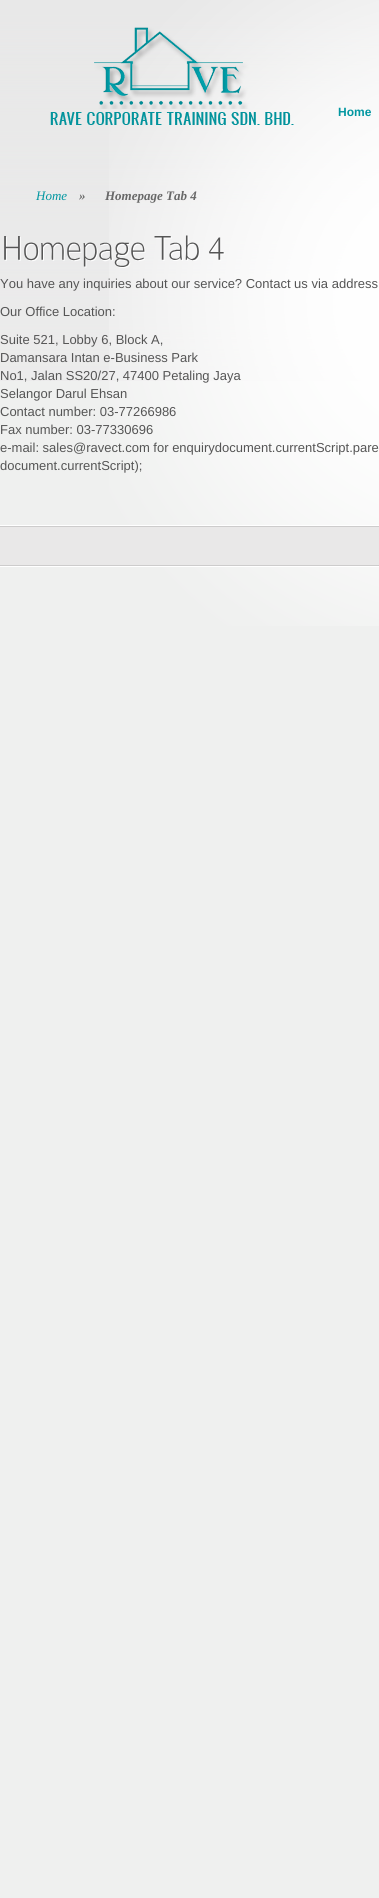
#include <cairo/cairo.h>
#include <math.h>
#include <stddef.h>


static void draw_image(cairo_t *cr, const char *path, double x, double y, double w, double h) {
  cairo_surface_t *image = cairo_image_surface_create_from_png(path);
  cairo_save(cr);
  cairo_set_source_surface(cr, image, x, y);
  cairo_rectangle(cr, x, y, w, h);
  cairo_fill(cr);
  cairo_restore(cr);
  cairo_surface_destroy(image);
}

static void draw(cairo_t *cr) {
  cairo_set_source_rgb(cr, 239 / 255.0, 240 / 255.0, 239 / 255.0);
  cairo_paint(cr);
  draw_image(cr, "images/1.png", 0, 0, 379, 381);
  draw_image(cr, "images/2.png", 109, 0, 270, 626);
  draw_image(cr, "images/3.png", 50, 27, 244, 98);
  draw_image(cr, "images/4.png", 4, 236, 142, 32);
  draw_image(cr, "images/5.png", 154, 235, 46, 26);
  draw_image(cr, "images/6.png", 209, 237, 16, 24);
  cairo_set_source_rgb(cr, 233 / 255.0, 232 / 255.0, 232 / 255.0);
  cairo_rectangle(cr, 0, 525, 379, 40);
  cairo_fill(cr);
  draw_image(cr, "images/7.png", 0, 525, 379, 2);
  cairo_set_source_rgb(cr, 205 / 255.0, 204 / 255.0, 204 / 255.0);
  cairo_rectangle(cr, 0, 565, 379, 1);
  cairo_fill(cr);
  cairo_set_source_rgb(cr, 1, 1, 1);
  cairo_rectangle(cr, 0, 566, 379, 1);
  cairo_fill(cr);
  cairo_select_font_face(cr, "Liberation Sans", CAIRO_FONT_SLANT_NORMAL, CAIRO_FONT_WEIGHT_BOLD);
  cairo_set_font_size(cr, 12);
  cairo_set_source_rgb(cr, 2 / 255.0, 151 / 255.0, 161 / 255.0);
  cairo_move_to(cr, 338, 116);
  cairo_show_text(cr, "Home");
  cairo_select_font_face(cr, "Liberation Serif", CAIRO_FONT_SLANT_ITALIC, CAIRO_FONT_WEIGHT_NORMAL);
  cairo_set_font_size(cr, 13);
  cairo_move_to(cr, 36, 200);
  cairo_show_text(cr, "Home");
  cairo_select_font_face(cr, "Liberation Serif", CAIRO_FONT_SLANT_ITALIC, CAIRO_FONT_WEIGHT_BOLD);
  cairo_set_source_rgb(cr, 104 / 255.0, 104 / 255.0, 104 / 255.0);
  cairo_move_to(cr, 79, 200);
  cairo_show_text(cr, "»");
  cairo_move_to(cr, 105, 200);
  cairo_show_text(cr, "Homepage Tab 4");
  cairo_select_font_face(cr, "Liberation Sans", CAIRO_FONT_SLANT_NORMAL, CAIRO_FONT_WEIGHT_NORMAL);
  cairo_set_source_rgb(cr, 85 / 255.0, 85 / 255.0, 85 / 255.0);
  cairo_move_to(cr, 0, 288);
  cairo_show_text(cr, "You have any inquiries about our service? Contact us via address");
  cairo_move_to(cr, 0, 316);
  cairo_show_text(cr, "Our Office Location:");
  cairo_move_to(cr, 0, 344);
  cairo_show_text(cr, "Suite 521, Lobby 6, Block A,");
  cairo_move_to(cr, 0, 362);
  cairo_show_text(cr, "Damansara Intan e-Business Park");
  cairo_move_to(cr, 0, 380);
  cairo_show_text(cr, "No1, Jalan SS20/27, 47400 Petaling Jaya");
  cairo_move_to(cr, 0, 398);
  cairo_show_text(cr, "Selangor Darul Ehsan");
  cairo_move_to(cr, 0, 416);
  cairo_show_text(cr, "Contact number: 03-77266986");
  cairo_move_to(cr, 0, 434);
  cairo_show_text(cr, "Fax number: 03-77330696");
  cairo_move_to(cr, 0, 452);
  cairo_show_text(cr, "e-mail: sales@ravect.com for enquirydocument.currentScript.pare");
  cairo_move_to(cr, 0, 470);
  cairo_show_text(cr, "document.currentScript);");
}

int main(void) {
  cairo_surface_t *surface = cairo_image_surface_create(CAIRO_FORMAT_RGB24, 379, 1898);
  cairo_t *cr = cairo_create(surface);
  cairo_font_options_t *options = cairo_font_options_create();
  cairo_font_options_set_hint_metrics(options, CAIRO_HINT_METRICS_OFF);
  cairo_font_options_set_hint_style(options, CAIRO_HINT_STYLE_NONE);
  cairo_set_font_options(cr, options);
  cairo_set_miter_limit(cr, 4);
  draw(cr);
  cairo_surface_write_to_png(surface, "out.png");
  cairo_font_options_destroy(options);
  cairo_destroy(cr);
  cairo_surface_destroy(surface);
  return 0;
}
